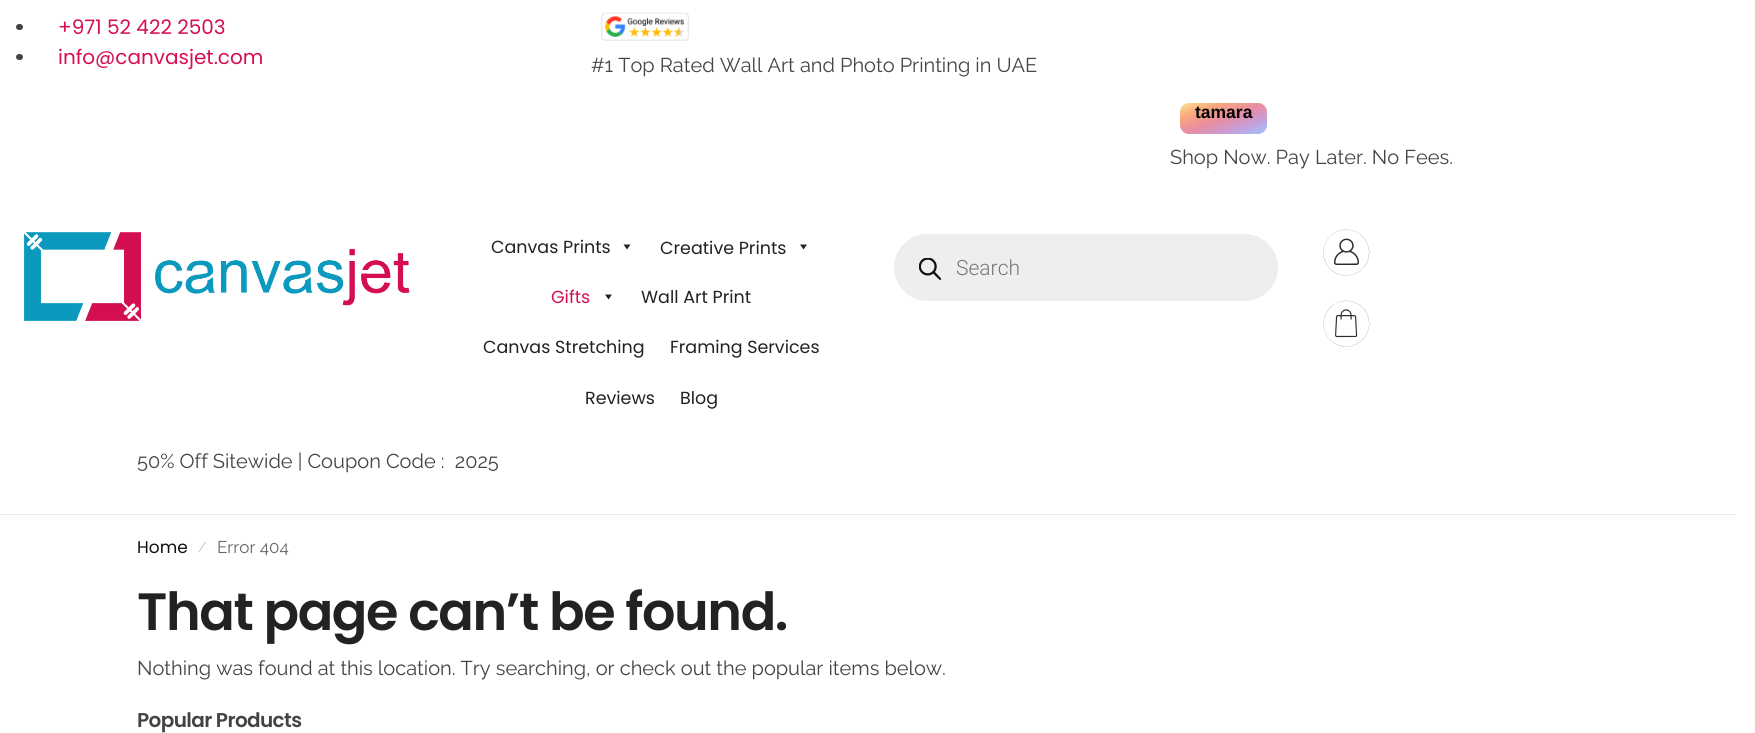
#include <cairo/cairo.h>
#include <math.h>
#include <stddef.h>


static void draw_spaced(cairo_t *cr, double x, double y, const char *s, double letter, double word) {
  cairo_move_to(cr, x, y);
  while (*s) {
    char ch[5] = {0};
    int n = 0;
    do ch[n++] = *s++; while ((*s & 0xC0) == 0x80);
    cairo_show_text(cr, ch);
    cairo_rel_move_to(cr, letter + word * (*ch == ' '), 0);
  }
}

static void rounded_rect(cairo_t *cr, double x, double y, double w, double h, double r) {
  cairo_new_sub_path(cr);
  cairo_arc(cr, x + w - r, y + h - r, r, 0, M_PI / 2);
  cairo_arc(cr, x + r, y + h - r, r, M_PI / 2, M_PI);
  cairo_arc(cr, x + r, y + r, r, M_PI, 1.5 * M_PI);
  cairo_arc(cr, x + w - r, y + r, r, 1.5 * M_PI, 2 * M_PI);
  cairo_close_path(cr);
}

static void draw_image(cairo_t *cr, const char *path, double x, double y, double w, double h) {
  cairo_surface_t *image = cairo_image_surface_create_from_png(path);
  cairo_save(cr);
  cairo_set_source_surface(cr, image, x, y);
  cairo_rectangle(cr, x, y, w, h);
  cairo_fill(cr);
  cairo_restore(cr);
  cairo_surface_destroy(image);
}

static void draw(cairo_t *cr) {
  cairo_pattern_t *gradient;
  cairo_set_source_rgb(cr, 1, 1, 1);
  cairo_paint(cr);
  cairo_set_source_rgb(cr, 68 / 255.0, 68 / 255.0, 68 / 255.0);
  rounded_rect(cr, 16, 24, 7, 6, 3);
  cairo_fill(cr);
  rounded_rect(cr, 16, 54, 7, 6, 3);
  cairo_fill(cr);
  draw_image(cr, "images/1.png", 601, 12, 88, 29);
  gradient = cairo_pattern_create_linear(1180, 103, 1200, 158);
  cairo_pattern_add_color_stop_rgba(gradient, 0, 251 / 255.0, 226 / 255.0, 146 / 255.0, 1);
  cairo_pattern_add_color_stop_rgba(gradient, 0.25, 248 / 255.0, 167 / 255.0, 125 / 255.0, 1);
  cairo_pattern_add_color_stop_rgba(gradient, 0.5, 233 / 255.0, 141 / 255.0, 161 / 255.0, 1);
  cairo_pattern_add_color_stop_rgba(gradient, 0.75, 199 / 255.0, 157 / 255.0, 215 / 255.0, 1);
  cairo_pattern_add_color_stop_rgba(gradient, 1, 160 / 255.0, 196 / 255.0, 1, 1);
  cairo_set_source(cr, gradient);
  cairo_pattern_destroy(gradient);
  rounded_rect(cr, 1180, 103, 87, 31, 9);
  cairo_fill(cr);
  draw_image(cr, "images/2.png", 24, 232, 386, 89);
  cairo_set_source_rgb(cr, 34 / 255.0, 34 / 255.0, 34 / 255.0);
  cairo_new_path(cr);
  cairo_move_to(cr, 630.5, 244.5);
  cairo_line_to(cr, 627, 249.5);
  cairo_line_to(cr, 623.5, 244.5);
  cairo_close_path(cr);
  cairo_fill(cr);
  cairo_new_path(cr);
  cairo_move_to(cr, 807, 244.5);
  cairo_line_to(cr, 803.5, 249.5);
  cairo_line_to(cr, 800, 244.5);
  cairo_close_path(cr);
  cairo_fill(cr);
  cairo_new_path(cr);
  cairo_move_to(cr, 612, 294.5);
  cairo_line_to(cr, 608.5, 299.5);
  cairo_line_to(cr, 605, 294.5);
  cairo_close_path(cr);
  cairo_fill(cr);
  cairo_set_source_rgb(cr, 238 / 255.0, 238 / 255.0, 238 / 255.0);
  rounded_rect(cr, 895.5, 235.5, 381, 64, 32);
  cairo_fill_preserve(cr);
  cairo_set_line_width(cr, 3);
  cairo_stroke(cr);
  draw_image(cr, "images/3.png", 919, 258, 22, 22);
  draw_image(cr, "images/4.png", 1323, 229, 47, 47);
  draw_image(cr, "images/5.png", 1323, 300, 47, 47);
  cairo_set_source_rgb(cr, 233 / 255.0, 235 / 255.0, 236 / 255.0);
  cairo_rectangle(cr, 0, 514, 1736, 1);
  cairo_fill(cr);
  cairo_select_font_face(cr, "Poppins", CAIRO_FONT_SLANT_NORMAL, CAIRO_FONT_WEIGHT_NORMAL);
  cairo_set_font_size(cr, 20);
  cairo_set_source_rgb(cr, 215 / 255.0, 14 / 255.0, 84 / 255.0);
  cairo_move_to(cr, 58, 34);
  cairo_show_text(cr, "+971 52 422 2503");
  cairo_move_to(cr, 58, 64);
  cairo_show_text(cr, "info@canvasjet.com");
  cairo_select_font_face(cr, "Raleway", CAIRO_FONT_SLANT_NORMAL, CAIRO_FONT_WEIGHT_NORMAL);
  cairo_set_source_rgb(cr, 68 / 255.0, 68 / 255.0, 68 / 255.0);
  cairo_move_to(cr, 591, 72);
  cairo_show_text(cr, "#1 Top Rated Wall Art and Photo Printing in UAE");
  cairo_select_font_face(cr, "Liberation Sans", CAIRO_FONT_SLANT_NORMAL, CAIRO_FONT_WEIGHT_BOLD);
  cairo_set_font_size(cr, 17.5);
  cairo_set_source_rgb(cr, 0, 0, 0);
  cairo_move_to(cr, 1195, 118);
  cairo_show_text(cr, "tamara");
  cairo_select_font_face(cr, "Raleway", CAIRO_FONT_SLANT_NORMAL, CAIRO_FONT_WEIGHT_NORMAL);
  cairo_set_font_size(cr, 20);
  cairo_set_source_rgb(cr, 68 / 255.0, 68 / 255.0, 68 / 255.0);
  cairo_move_to(cr, 1170, 164);
  cairo_show_text(cr, "Shop Now. Pay Later. No Fees.");
  cairo_select_font_face(cr, "Poppins", CAIRO_FONT_SLANT_NORMAL, CAIRO_FONT_WEIGHT_NORMAL);
  cairo_set_font_size(cr, 17.5);
  cairo_set_source_rgb(cr, 34 / 255.0, 34 / 255.0, 34 / 255.0);
  cairo_move_to(cr, 491, 253);
  cairo_show_text(cr, "Canvas Prints");
  cairo_move_to(cr, 660, 254);
  cairo_show_text(cr, "Creative Prints");
  cairo_set_source_rgb(cr, 215 / 255.0, 14 / 255.0, 84 / 255.0);
  cairo_move_to(cr, 551, 303);
  cairo_show_text(cr, "Gifts");
  cairo_set_source_rgb(cr, 34 / 255.0, 34 / 255.0, 34 / 255.0);
  cairo_move_to(cr, 641, 303);
  cairo_show_text(cr, "Wall Art Print");
  cairo_move_to(cr, 483, 353);
  cairo_show_text(cr, "Canvas Stretching");
  cairo_move_to(cr, 670, 353);
  cairo_show_text(cr, "Framing Services");
  cairo_move_to(cr, 585, 404);
  cairo_show_text(cr, "Reviews");
  cairo_move_to(cr, 680, 404);
  cairo_show_text(cr, "Blog");
  cairo_select_font_face(cr, "Roboto Light", CAIRO_FONT_SLANT_NORMAL, CAIRO_FONT_WEIGHT_NORMAL);
  cairo_set_font_size(cr, 21);
  cairo_set_source_rgb(cr, 119 / 255.0, 119 / 255.0, 119 / 255.0);
  cairo_move_to(cr, 956, 275);
  cairo_show_text(cr, "Search");
  cairo_select_font_face(cr, "Raleway", CAIRO_FONT_SLANT_NORMAL, CAIRO_FONT_WEIGHT_NORMAL);
  cairo_set_font_size(cr, 20);
  cairo_set_source_rgb(cr, 68 / 255.0, 68 / 255.0, 68 / 255.0);
  cairo_move_to(cr, 137, 468);
  cairo_show_text(cr, "50% Off Sitewide | Coupon Code :  2025");
  cairo_select_font_face(cr, "Poppins", CAIRO_FONT_SLANT_NORMAL, CAIRO_FONT_WEIGHT_NORMAL);
  cairo_set_font_size(cr, 17);
  cairo_set_source_rgb(cr, 17 / 255.0, 17 / 255.0, 17 / 255.0);
  cairo_move_to(cr, 137, 553);
  cairo_show_text(cr, "Home");
  cairo_select_font_face(cr, "Raleway", CAIRO_FONT_SLANT_NORMAL, CAIRO_FONT_WEIGHT_NORMAL);
  cairo_set_font_size(cr, 14);
  cairo_set_source_rgb(cr, 194 / 255.0, 194 / 255.0, 194 / 255.0);
  cairo_move_to(cr, 198, 552);
  cairo_show_text(cr, "/");
  cairo_set_font_size(cr, 17);
  cairo_set_source_rgb(cr, 102 / 255.0, 102 / 255.0, 102 / 255.0);
  cairo_move_to(cr, 217, 553);
  cairo_show_text(cr, "Error 404");
  cairo_select_font_face(cr, "Poppins SemiBold", CAIRO_FONT_SLANT_NORMAL, CAIRO_FONT_WEIGHT_NORMAL);
  cairo_set_font_size(cr, 52.5);
  cairo_set_source_rgb(cr, 34 / 255.0, 34 / 255.0, 34 / 255.0);
  draw_spaced(cr, 137, 630, "That page can’t be found.", -1.4, 0);
  cairo_select_font_face(cr, "Raleway", CAIRO_FONT_SLANT_NORMAL, CAIRO_FONT_WEIGHT_NORMAL);
  cairo_set_font_size(cr, 20);
  cairo_set_source_rgb(cr, 68 / 255.0, 68 / 255.0, 68 / 255.0);
  cairo_move_to(cr, 137, 675);
  cairo_show_text(cr, "Nothing was found at this location. Try searching, or check out the popular items below.");
  cairo_select_font_face(cr, "Poppins SemiBold", CAIRO_FONT_SLANT_NORMAL, CAIRO_FONT_WEIGHT_NORMAL);
  draw_spaced(cr, 137, 727, "Popular Products", -0.6, 0);
}

int main(void) {
  cairo_surface_t *surface = cairo_image_surface_create(CAIRO_FORMAT_RGB24, 1755, 733);
  cairo_t *cr = cairo_create(surface);
  cairo_font_options_t *options = cairo_font_options_create();
  cairo_font_options_set_hint_metrics(options, CAIRO_HINT_METRICS_OFF);
  cairo_font_options_set_hint_style(options, CAIRO_HINT_STYLE_NONE);
  cairo_set_font_options(cr, options);
  cairo_set_miter_limit(cr, 4);
  draw(cr);
  cairo_surface_write_to_png(surface, "out.png");
  cairo_font_options_destroy(options);
  cairo_destroy(cr);
  cairo_surface_destroy(surface);
  return 0;
}
